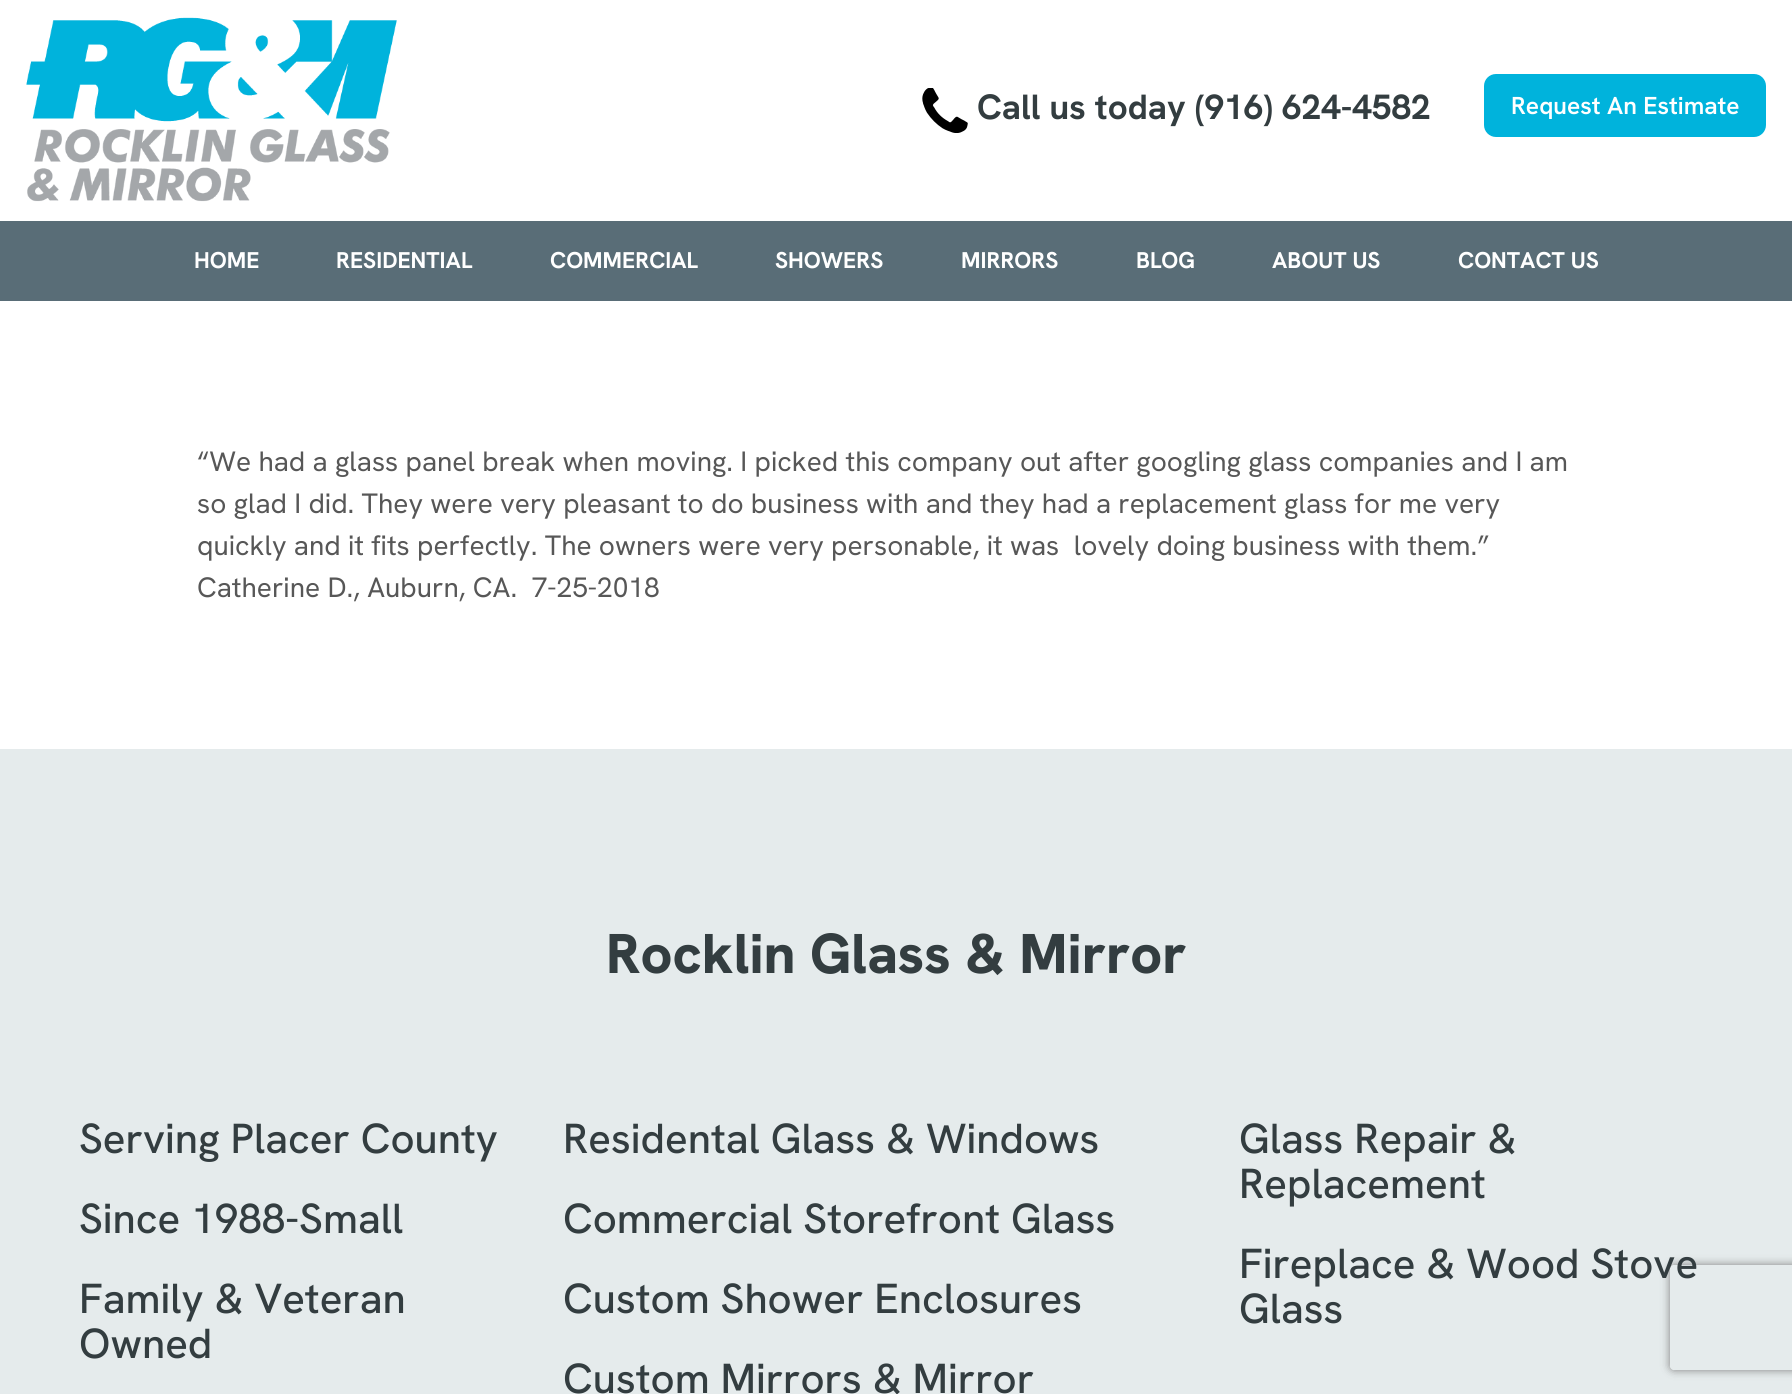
#include <cairo/cairo.h>
#include <math.h>
#include <stddef.h>


static void rounded_rect(cairo_t *cr, double x, double y, double w, double h, double r) {
  cairo_new_sub_path(cr);
  cairo_arc(cr, x + w - r, y + h - r, r, 0, M_PI / 2);
  cairo_arc(cr, x + r, y + h - r, r, M_PI / 2, M_PI);
  cairo_arc(cr, x + r, y + r, r, M_PI, 1.5 * M_PI);
  cairo_arc(cr, x + w - r, y + r, r, 1.5 * M_PI, 2 * M_PI);
  cairo_close_path(cr);
}

static void draw_shadow(cairo_t *cr, double x, double y, double w, double h, double r, double blur, double alpha) {
  cairo_push_group_with_content(cr, CAIRO_CONTENT_ALPHA);
  cairo_set_operator(cr, CAIRO_OPERATOR_SOURCE);
  for (int i = 15; i >= -15 && fmin(w, h) + blur * i / 3 > 0; i -= 2) {
    double e = blur * i / 6;
    cairo_set_source_rgba(cr, 0, 0, 0, alpha * erfc((i - 1) / 8.5) / 2);
    rounded_rect(cr, x - e, y - e, w + 2 * e, h + 2 * e, fmax(0, fmin(r + e + blur * .6, fmin(w, h) / 2 + e)));
    cairo_fill(cr);
  }
  cairo_pattern_t *soft = cairo_pop_group(cr);
  cairo_mask(cr, soft);
  cairo_pattern_destroy(soft);
}

static void draw_image(cairo_t *cr, const char *path, double x, double y, double w, double h) {
  cairo_surface_t *image = cairo_image_surface_create_from_png(path);
  cairo_save(cr);
  cairo_set_source_surface(cr, image, x, y);
  cairo_rectangle(cr, x, y, w, h);
  cairo_fill(cr);
  cairo_restore(cr);
  cairo_surface_destroy(image);
}

static void draw(cairo_t *cr) {
  cairo_set_source_rgb(cr, 1, 1, 1);
  cairo_paint(cr);
  draw_image(cr, "images/1.png", 26, 17, 371, 185);
  draw_image(cr, "images/2.png", 922, 88, 46, 45);
  cairo_set_source_rgb(cr, 0, 179 / 255.0, 220 / 255.0);
  rounded_rect(cr, 1484, 74, 282, 63, 12);
  cairo_fill(cr);
  cairo_set_source_rgb(cr, 89 / 255.0, 109 / 255.0, 119 / 255.0);
  cairo_rectangle(cr, 0, 221, 1792, 80);
  cairo_fill(cr);
  cairo_set_source_rgb(cr, 229 / 255.0, 235 / 255.0, 236 / 255.0);
  cairo_rectangle(cr, 0, 749, 1792, 645);
  cairo_fill(cr);
  cairo_save(cr);
  cairo_set_fill_rule(cr, CAIRO_FILL_RULE_EVEN_ODD);
  cairo_new_path(cr);
  cairo_move_to(cr, 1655, 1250);
  cairo_line_to(cr, 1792, 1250);
  cairo_line_to(cr, 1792, 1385);
  cairo_line_to(cr, 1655, 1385);
  cairo_close_path(cr);
  cairo_move_to(cr, 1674, 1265);
  cairo_line_to(cr, 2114, 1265);
  cairo_curve_to(cr, 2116, 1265, 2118, 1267, 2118, 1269);
  cairo_line_to(cr, 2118, 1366);
  cairo_curve_to(cr, 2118, 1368, 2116, 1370, 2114, 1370);
  cairo_line_to(cr, 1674, 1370);
  cairo_curve_to(cr, 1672, 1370, 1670, 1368, 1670, 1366);
  cairo_line_to(cr, 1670, 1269);
  cairo_curve_to(cr, 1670, 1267, 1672, 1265, 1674, 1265);
  cairo_close_path(cr);
  cairo_clip(cr);
  cairo_set_source_rgb(cr, 128 / 255.0, 128 / 255.0, 128 / 255.0);
  draw_shadow(cr, 1670, 1265, 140, 105, 4, 4.5, 1);
  cairo_restore(cr);
  cairo_select_font_face(cr, "Hanken Grotesk", CAIRO_FONT_SLANT_NORMAL, CAIRO_FONT_WEIGHT_BOLD);
  cairo_set_font_size(cr, 35);
  cairo_set_source_rgb(cr, 51 / 255.0, 61 / 255.0, 64 / 255.0);
  cairo_move_to(cr, 977, 119);
  cairo_show_text(cr, "Call us today (916) 624-4582");
  cairo_select_font_face(cr, "Hanken Grotesk SemiBold", CAIRO_FONT_SLANT_NORMAL, CAIRO_FONT_WEIGHT_NORMAL);
  cairo_set_font_size(cr, 24.5);
  cairo_set_source_rgb(cr, 1, 1, 1);
  cairo_move_to(cr, 1511, 114);
  cairo_show_text(cr, "Request An Estimate");
  cairo_select_font_face(cr, "Hanken Grotesk", CAIRO_FONT_SLANT_NORMAL, CAIRO_FONT_WEIGHT_BOLD);
  cairo_set_font_size(cr, 22.75);
  cairo_move_to(cr, 194, 268);
  cairo_show_text(cr, "HOME");
  cairo_move_to(cr, 336, 268);
  cairo_show_text(cr, "RESIDENTIAL");
  cairo_move_to(cr, 550, 268);
  cairo_show_text(cr, "COMMERCIAL");
  cairo_move_to(cr, 775, 268);
  cairo_show_text(cr, "SHOWERS");
  cairo_move_to(cr, 961, 268);
  cairo_show_text(cr, "MIRRORS");
  cairo_move_to(cr, 1136, 268);
  cairo_show_text(cr, "BLOG");
  cairo_move_to(cr, 1272, 268);
  cairo_show_text(cr, "ABOUT US");
  cairo_move_to(cr, 1458, 268);
  cairo_show_text(cr, "CONTACT US");
  cairo_select_font_face(cr, "Hanken Grotesk", CAIRO_FONT_SLANT_NORMAL, CAIRO_FONT_WEIGHT_NORMAL);
  cairo_set_font_size(cr, 28);
  cairo_set_source_rgb(cr, 87 / 255.0, 87 / 255.0, 87 / 255.0);
  cairo_move_to(cr, 197, 471);
  cairo_show_text(cr, "“We had a glass panel break when moving. I picked this company out after googling glass companies and I am");
  cairo_move_to(cr, 197, 513);
  cairo_show_text(cr, "so glad I did. They were very pleasant to do business with and they had a replacement glass for me very");
  cairo_move_to(cr, 197, 555);
  cairo_show_text(cr, "quickly and it fits perfectly. The owners were very personable, it was  lovely doing business with them.”");
  cairo_move_to(cr, 197, 597);
  cairo_show_text(cr, "Catherine D., Auburn, CA.  7-25-2018");
  cairo_select_font_face(cr, "Hanken Grotesk ExtraBold", CAIRO_FONT_SLANT_NORMAL, CAIRO_FONT_WEIGHT_NORMAL);
  cairo_set_font_size(cr, 56);
  cairo_set_source_rgb(cr, 51 / 255.0, 61 / 255.0, 64 / 255.0);
  cairo_move_to(cr, 606, 973);
  cairo_show_text(cr, "Rocklin Glass & Mirror");
  cairo_select_font_face(cr, "Hanken Grotesk Medium", CAIRO_FONT_SLANT_NORMAL, CAIRO_FONT_WEIGHT_NORMAL);
  cairo_set_font_size(cr, 42);
  cairo_move_to(cr, 79, 1153);
  cairo_show_text(cr, "Serving Placer County");
  cairo_move_to(cr, 79, 1233);
  cairo_show_text(cr, "Since 1988-Small");
  cairo_move_to(cr, 79, 1313);
  cairo_show_text(cr, "Family & Veteran");
  cairo_move_to(cr, 79, 1358);
  cairo_show_text(cr, "Owned");
  cairo_move_to(cr, 563, 1153);
  cairo_show_text(cr, "Residental Glass & Windows");
  cairo_move_to(cr, 563, 1233);
  cairo_show_text(cr, "Commercial Storefront Glass");
  cairo_move_to(cr, 563, 1313);
  cairo_show_text(cr, "Custom Shower Enclosures");
  cairo_move_to(cr, 563, 1393);
  cairo_show_text(cr, "Custom Mirrors & Mirror");
  cairo_move_to(cr, 1239, 1153);
  cairo_show_text(cr, "Glass Repair &");
  cairo_move_to(cr, 1239, 1198);
  cairo_show_text(cr, "Replacement");
  cairo_move_to(cr, 1239, 1278);
  cairo_show_text(cr, "Fireplace & Wood Stove");
  cairo_move_to(cr, 1239, 1323);
  cairo_show_text(cr, "Glass");
}

int main(void) {
  cairo_surface_t *surface = cairo_image_surface_create(CAIRO_FORMAT_RGB24, 1792, 1394);
  cairo_t *cr = cairo_create(surface);
  cairo_font_options_t *options = cairo_font_options_create();
  cairo_font_options_set_hint_metrics(options, CAIRO_HINT_METRICS_OFF);
  cairo_font_options_set_hint_style(options, CAIRO_HINT_STYLE_NONE);
  cairo_set_font_options(cr, options);
  cairo_set_miter_limit(cr, 4);
  draw(cr);
  cairo_surface_write_to_png(surface, "out.png");
  cairo_font_options_destroy(options);
  cairo_destroy(cr);
  cairo_surface_destroy(surface);
  return 0;
}
